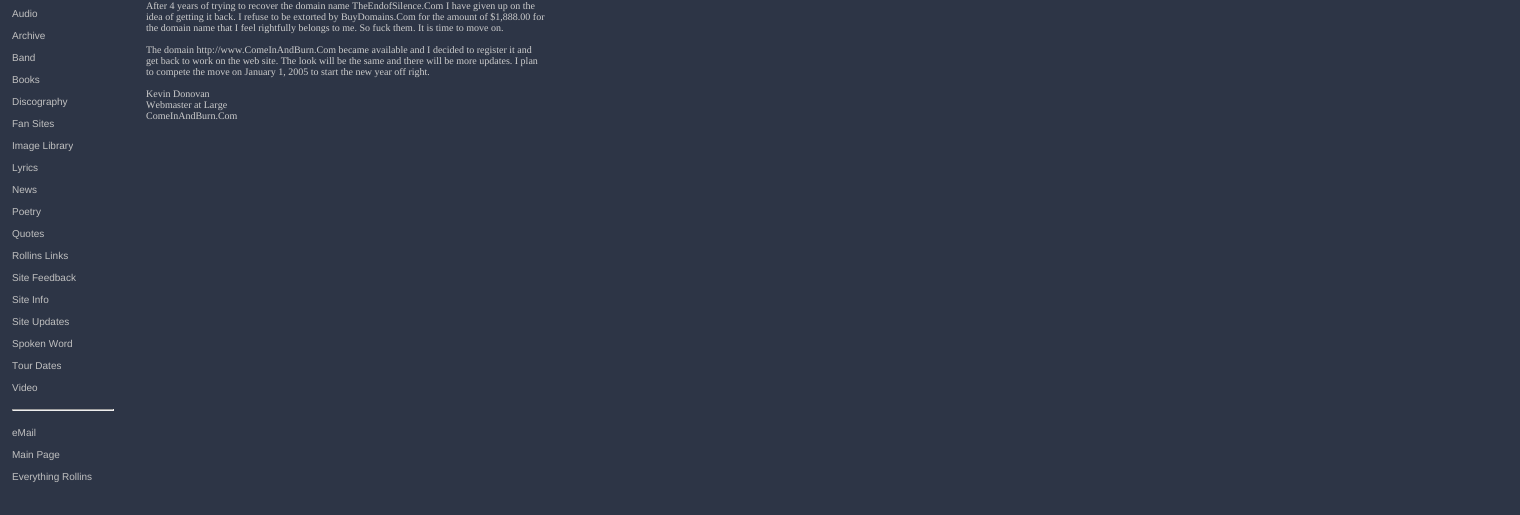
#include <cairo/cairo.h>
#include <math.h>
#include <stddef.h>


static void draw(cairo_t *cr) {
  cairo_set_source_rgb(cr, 45 / 255.0, 53 / 255.0, 70 / 255.0);
  cairo_paint(cr);
  cairo_set_source_rgb(cr, 159 / 255.0, 159 / 255.0, 159 / 255.0);
  cairo_rectangle(cr, 12, 409, 102, 1);
  cairo_fill(cr);
  cairo_set_source_rgb(cr, 238 / 255.0, 238 / 255.0, 238 / 255.0);
  cairo_rectangle(cr, 113, 409, 1, 2);
  cairo_fill(cr);
  cairo_rectangle(cr, 12, 410, 102, 1);
  cairo_fill(cr);
  cairo_set_source_rgb(cr, 159 / 255.0, 159 / 255.0, 159 / 255.0);
  cairo_rectangle(cr, 12, 409, 1, 2);
  cairo_fill(cr);
  cairo_select_font_face(cr, "Liberation Sans", CAIRO_FONT_SLANT_NORMAL, CAIRO_FONT_WEIGHT_NORMAL);
  cairo_set_font_size(cr, 10);
  cairo_set_source_rgb(cr, 192 / 255.0, 192 / 255.0, 192 / 255.0);
  cairo_move_to(cr, 12, 17);
  cairo_show_text(cr, "Audio");
  cairo_move_to(cr, 12, 39);
  cairo_show_text(cr, "Archive");
  cairo_move_to(cr, 12, 61);
  cairo_show_text(cr, "Band");
  cairo_move_to(cr, 12, 83);
  cairo_show_text(cr, "Books");
  cairo_move_to(cr, 12, 105);
  cairo_show_text(cr, "Discography");
  cairo_move_to(cr, 12, 127);
  cairo_show_text(cr, "Fan Sites");
  cairo_move_to(cr, 12, 149);
  cairo_show_text(cr, "Image Library");
  cairo_move_to(cr, 12, 171);
  cairo_show_text(cr, "Lyrics");
  cairo_move_to(cr, 12, 193);
  cairo_show_text(cr, "News");
  cairo_move_to(cr, 12, 215);
  cairo_show_text(cr, "Poetry");
  cairo_move_to(cr, 12, 237);
  cairo_show_text(cr, "Quotes");
  cairo_move_to(cr, 12, 259);
  cairo_show_text(cr, "Rollins Links");
  cairo_move_to(cr, 12, 281);
  cairo_show_text(cr, "Site Feedback");
  cairo_move_to(cr, 12, 303);
  cairo_show_text(cr, "Site Info");
  cairo_move_to(cr, 12, 325);
  cairo_show_text(cr, "Site Updates");
  cairo_move_to(cr, 12, 347);
  cairo_show_text(cr, "Spoken Word");
  cairo_move_to(cr, 12, 369);
  cairo_show_text(cr, "Tour Dates");
  cairo_move_to(cr, 12, 391);
  cairo_show_text(cr, "Video");
  cairo_move_to(cr, 12, 436);
  cairo_show_text(cr, "eMail");
  cairo_move_to(cr, 12, 458);
  cairo_show_text(cr, "Main Page");
  cairo_move_to(cr, 12, 480);
  cairo_show_text(cr, "Everything Rollins");
  cairo_select_font_face(cr, "Liberation Serif", CAIRO_FONT_SLANT_NORMAL, CAIRO_FONT_WEIGHT_NORMAL);
  cairo_set_source_rgb(cr, 204 / 255.0, 204 / 255.0, 204 / 255.0);
  cairo_move_to(cr, 146, 9);
  cairo_show_text(cr, "After 4 years of trying to recover the domain name TheEndofSilence.Com I have given up on the");
  cairo_move_to(cr, 146, 20);
  cairo_show_text(cr, "idea of getting it back. I refuse to be extorted by BuyDomains.Com for the amount of $1,888.00 for");
  cairo_move_to(cr, 146, 31);
  cairo_show_text(cr, "the domain name that I feel rightfully belongs to me. So fuck them. It is time to move on.");
  cairo_move_to(cr, 146, 53);
  cairo_show_text(cr, "The domain http://www.ComeInAndBurn.Com became available and I decided to register it and");
  cairo_move_to(cr, 146, 64);
  cairo_show_text(cr, "get back to work on the web site. The look will be the same and there will be more updates. I plan");
  cairo_move_to(cr, 146, 75);
  cairo_show_text(cr, "to compete the move on January 1, 2005 to start the new year off right.");
  cairo_move_to(cr, 146, 97);
  cairo_show_text(cr, "Kevin Donovan");
  cairo_move_to(cr, 146, 108);
  cairo_show_text(cr, "Webmaster at Large");
  cairo_move_to(cr, 146, 119);
  cairo_show_text(cr, "ComeInAndBurn.Com");
}

int main(void) {
  cairo_surface_t *surface = cairo_image_surface_create(CAIRO_FORMAT_RGB24, 1520, 515);
  cairo_t *cr = cairo_create(surface);
  cairo_font_options_t *options = cairo_font_options_create();
  cairo_font_options_set_hint_metrics(options, CAIRO_HINT_METRICS_OFF);
  cairo_font_options_set_hint_style(options, CAIRO_HINT_STYLE_NONE);
  cairo_set_font_options(cr, options);
  cairo_set_miter_limit(cr, 4);
  draw(cr);
  cairo_surface_write_to_png(surface, "out.png");
  cairo_font_options_destroy(options);
  cairo_destroy(cr);
  cairo_surface_destroy(surface);
  return 0;
}
